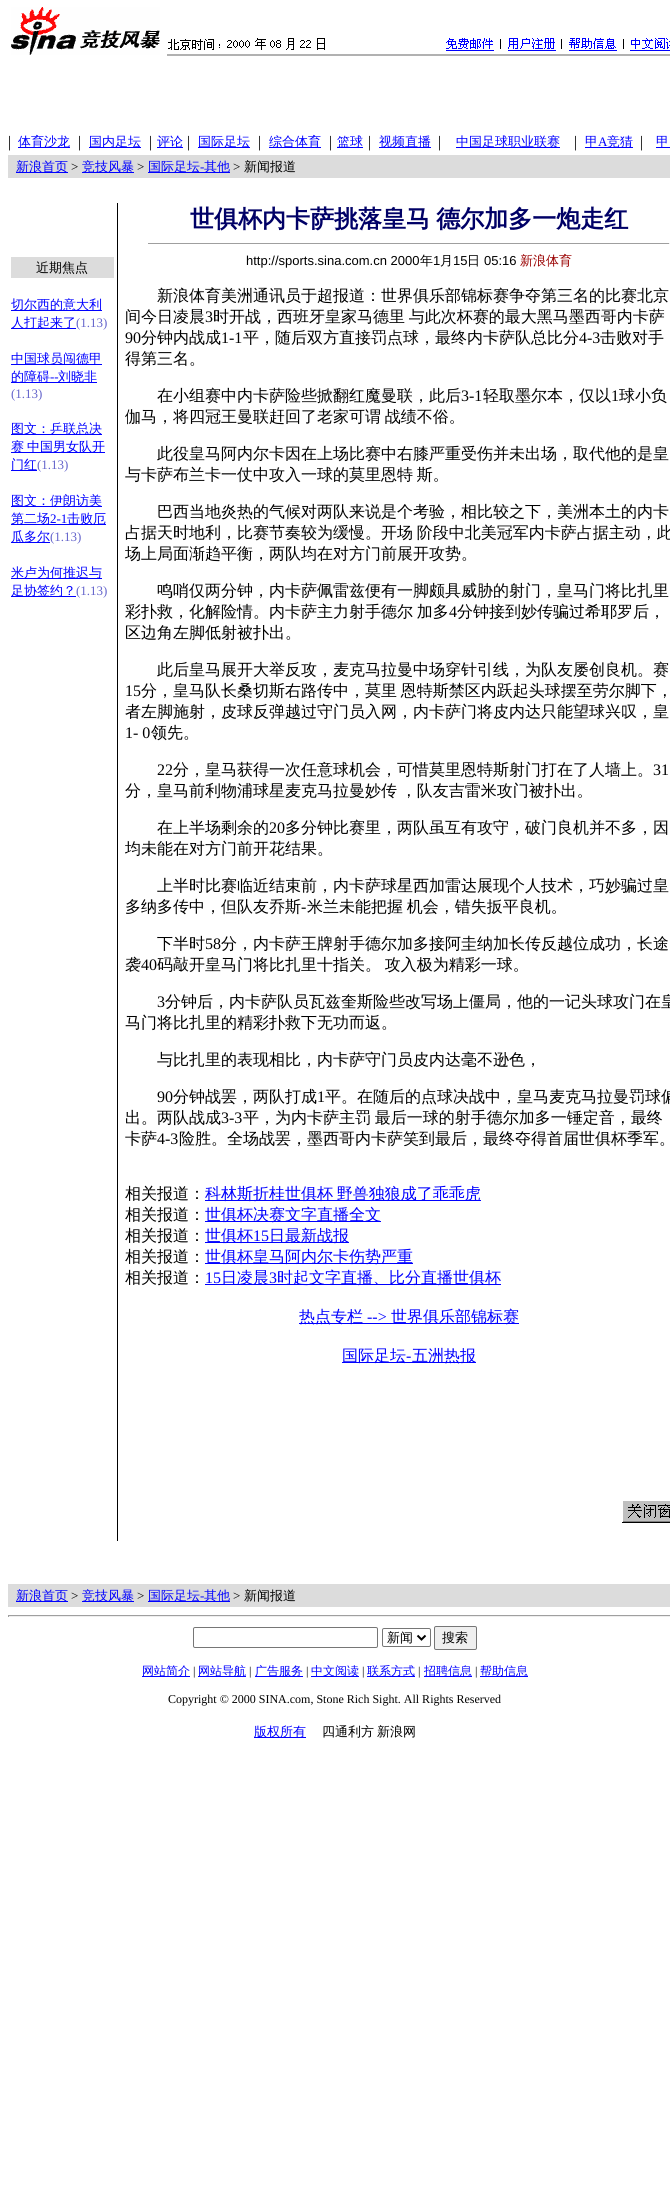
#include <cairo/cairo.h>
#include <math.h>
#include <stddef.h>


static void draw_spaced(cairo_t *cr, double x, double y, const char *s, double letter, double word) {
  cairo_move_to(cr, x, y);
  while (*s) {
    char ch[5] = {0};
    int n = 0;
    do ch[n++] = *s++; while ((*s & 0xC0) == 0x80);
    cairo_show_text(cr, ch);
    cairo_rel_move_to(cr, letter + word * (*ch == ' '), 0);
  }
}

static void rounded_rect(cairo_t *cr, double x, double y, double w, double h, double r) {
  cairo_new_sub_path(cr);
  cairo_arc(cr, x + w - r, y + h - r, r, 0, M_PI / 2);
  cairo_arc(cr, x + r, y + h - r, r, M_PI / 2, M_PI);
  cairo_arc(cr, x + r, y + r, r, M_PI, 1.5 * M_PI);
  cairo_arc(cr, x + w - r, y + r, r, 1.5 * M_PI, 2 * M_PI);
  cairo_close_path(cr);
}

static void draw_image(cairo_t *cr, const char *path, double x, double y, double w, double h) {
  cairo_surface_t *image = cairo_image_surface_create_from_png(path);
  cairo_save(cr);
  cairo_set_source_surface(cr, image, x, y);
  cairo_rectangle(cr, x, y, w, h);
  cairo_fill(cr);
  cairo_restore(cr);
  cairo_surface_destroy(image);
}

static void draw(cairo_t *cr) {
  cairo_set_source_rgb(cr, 1, 1, 1);
  cairo_paint(cr);
  draw_image(cr, "images/1.png", 11, 7, 149, 48);
  draw_image(cr, "images/2.png", 167, 38, 503, 18);
  cairo_set_source_rgb(cr, 0, 0, 1);
  cairo_rectangle(cr, 18, 147, 52, 1);
  cairo_fill(cr);
  cairo_rectangle(cr, 89, 147, 52, 1);
  cairo_fill(cr);
  cairo_rectangle(cr, 157, 147, 26, 1);
  cairo_fill(cr);
  cairo_rectangle(cr, 198, 147, 52, 1);
  cairo_fill(cr);
  cairo_rectangle(cr, 269, 147, 52, 1);
  cairo_fill(cr);
  cairo_rectangle(cr, 337, 147, 26, 1);
  cairo_fill(cr);
  cairo_rectangle(cr, 379, 147, 52, 1);
  cairo_fill(cr);
  cairo_rectangle(cr, 456, 147, 104, 1);
  cairo_fill(cr);
  cairo_rectangle(cr, 585, 147, 48, 1);
  cairo_fill(cr);
  cairo_rectangle(cr, 656, 147, 14, 1);
  cairo_fill(cr);
  cairo_set_source_rgb(cr, 220 / 255.0, 220 / 255.0, 220 / 255.0);
  cairo_rectangle(cr, 8, 155, 662, 23);
  cairo_fill(cr);
  cairo_set_source_rgb(cr, 0, 0, 1);
  cairo_rectangle(cr, 16, 172, 52, 1);
  cairo_fill(cr);
  cairo_rectangle(cr, 82, 172, 52, 1);
  cairo_fill(cr);
  cairo_rectangle(cr, 148, 172, 82, 1);
  cairo_fill(cr);
  cairo_set_source_rgb(cr, 220 / 255.0, 220 / 255.0, 220 / 255.0);
  cairo_rectangle(cr, 11, 257, 103, 21);
  cairo_fill(cr);
  cairo_set_source_rgb(cr, 0, 0, 1);
  cairo_rectangle(cr, 11, 310, 91, 1);
  cairo_fill(cr);
  cairo_rectangle(cr, 11, 328, 65, 1);
  cairo_fill(cr);
  cairo_rectangle(cr, 11, 364, 91, 1);
  cairo_fill(cr);
  cairo_rectangle(cr, 11, 382, 86, 1);
  cairo_fill(cr);
  cairo_rectangle(cr, 11, 434, 91, 1);
  cairo_fill(cr);
  cairo_rectangle(cr, 11, 452, 94, 1);
  cairo_fill(cr);
  cairo_rectangle(cr, 11, 470, 26, 1);
  cairo_fill(cr);
  cairo_rectangle(cr, 11, 506, 91, 1);
  cairo_fill(cr);
  cairo_rectangle(cr, 11, 524, 95, 1);
  cairo_fill(cr);
  cairo_rectangle(cr, 11, 542, 39, 1);
  cairo_fill(cr);
  cairo_rectangle(cr, 11, 578, 91, 1);
  cairo_fill(cr);
  cairo_rectangle(cr, 11, 596, 65, 1);
  cairo_fill(cr);
  cairo_set_source_rgb(cr, 0, 0, 0);
  cairo_rectangle(cr, 117, 203, 1, 1338);
  cairo_fill(cr);
  cairo_set_source_rgb(cr, 159 / 255.0, 159 / 255.0, 159 / 255.0);
  cairo_rectangle(cr, 148, 243, 522, 1);
  cairo_fill(cr);
  cairo_set_source_rgb(cr, 238 / 255.0, 238 / 255.0, 238 / 255.0);
  cairo_rectangle(cr, 669, 243, 1, 1);
  cairo_fill(cr);
  cairo_set_source_rgb(cr, 0, 0, 1);
  cairo_rectangle(cr, 205, 1200, 276, 1);
  cairo_fill(cr);
  cairo_rectangle(cr, 205, 1221, 176, 1);
  cairo_fill(cr);
  cairo_rectangle(cr, 205, 1242, 144, 1);
  cairo_fill(cr);
  cairo_rectangle(cr, 205, 1263, 208, 1);
  cairo_fill(cr);
  cairo_rectangle(cr, 205, 1284, 296, 1);
  cairo_fill(cr);
  cairo_rectangle(cr, 299, 1323, 220, 1);
  cairo_fill(cr);
  cairo_rectangle(cr, 342, 1362, 134, 1);
  cairo_fill(cr);
  draw_image(cr, "images/3.png", 622, 1501, 48, 22);
  cairo_set_source_rgb(cr, 220 / 255.0, 220 / 255.0, 220 / 255.0);
  cairo_rectangle(cr, 8, 1584, 662, 23);
  cairo_fill(cr);
  cairo_set_source_rgb(cr, 0, 0, 1);
  cairo_rectangle(cr, 16, 1601, 52, 1);
  cairo_fill(cr);
  cairo_rectangle(cr, 82, 1601, 52, 1);
  cairo_fill(cr);
  cairo_rectangle(cr, 148, 1601, 82, 1);
  cairo_fill(cr);
  cairo_set_source_rgb(cr, 159 / 255.0, 159 / 255.0, 159 / 255.0);
  cairo_rectangle(cr, 8, 1615, 662, 1);
  cairo_fill(cr);
  cairo_set_source_rgb(cr, 238 / 255.0, 238 / 255.0, 238 / 255.0);
  cairo_rectangle(cr, 8, 1616, 662, 1);
  cairo_fill(cr);
  cairo_set_source_rgb(cr, 159 / 255.0, 159 / 255.0, 159 / 255.0);
  cairo_rectangle(cr, 8, 1615, 1, 2);
  cairo_fill(cr);
  rounded_rect(cr, 193.5, 1627.5, 184, 20, 1.5);
  cairo_set_source_rgb(cr, 118 / 255.0, 118 / 255.0, 118 / 255.0);
  cairo_set_line_width(cr, 1);
  cairo_stroke(cr);
  rounded_rect(cr, 382.5, 1628.5, 48, 18, 1.5);
  cairo_stroke(cr);
  cairo_new_path(cr);
  cairo_move_to(cr, 417.5, 1635.5);
  cairo_line_to(cr, 421.5, 1639.5);
  cairo_line_to(cr, 425.5, 1635.5);
  cairo_set_source_rgb(cr, 0, 0, 0);
  cairo_set_line_width(cr, 2);
  cairo_stroke(cr);
  cairo_set_source_rgb(cr, 239 / 255.0, 239 / 255.0, 239 / 255.0);
  rounded_rect(cr, 434.5, 1626.5, 42, 23, 1.5);
  cairo_fill_preserve(cr);
  cairo_set_source_rgb(cr, 118 / 255.0, 118 / 255.0, 118 / 255.0);
  cairo_set_line_width(cr, 1);
  cairo_stroke(cr);
  cairo_set_source_rgb(cr, 0, 0, 1);
  cairo_rectangle(cr, 142, 1676, 48, 1);
  cairo_fill(cr);
  cairo_rectangle(cr, 198, 1676, 48, 1);
  cairo_fill(cr);
  cairo_rectangle(cr, 255, 1676, 48, 1);
  cairo_fill(cr);
  cairo_rectangle(cr, 311, 1676, 48, 1);
  cairo_fill(cr);
  cairo_rectangle(cr, 367, 1676, 48, 1);
  cairo_fill(cr);
  cairo_rectangle(cr, 424, 1676, 48, 1);
  cairo_fill(cr);
  cairo_rectangle(cr, 480, 1676, 48, 1);
  cairo_fill(cr);
  cairo_rectangle(cr, 254, 1737, 52, 1);
  cairo_fill(cr);
  cairo_select_font_face(cr, "Liberation Serif", CAIRO_FONT_SLANT_NORMAL, CAIRO_FONT_WEIGHT_NORMAL);
  cairo_set_font_size(cr, 16);
  cairo_set_source_rgb(cr, 0, 0, 0);
  cairo_move_to(cr, 8, 147);
  cairo_show_text(cr, "|");
  cairo_select_font_face(cr, "WenQuanYi Zen Hei Medium", CAIRO_FONT_SLANT_NORMAL, CAIRO_FONT_WEIGHT_NORMAL);
  cairo_set_font_size(cr, 13);
  cairo_set_source_rgb(cr, 0, 0, 1);
  cairo_move_to(cr, 18, 146);
  cairo_show_text(cr, "体育沙龙");
  cairo_select_font_face(cr, "Liberation Serif", CAIRO_FONT_SLANT_NORMAL, CAIRO_FONT_WEIGHT_NORMAL);
  cairo_set_font_size(cr, 16);
  cairo_set_source_rgb(cr, 0, 0, 0);
  cairo_move_to(cr, 78, 147);
  cairo_show_text(cr, "|");
  cairo_select_font_face(cr, "WenQuanYi Zen Hei Medium", CAIRO_FONT_SLANT_NORMAL, CAIRO_FONT_WEIGHT_NORMAL);
  cairo_set_font_size(cr, 13);
  cairo_set_source_rgb(cr, 0, 0, 1);
  cairo_move_to(cr, 89, 146);
  cairo_show_text(cr, "国内足坛");
  cairo_select_font_face(cr, "Liberation Serif", CAIRO_FONT_SLANT_NORMAL, CAIRO_FONT_WEIGHT_NORMAL);
  cairo_set_font_size(cr, 16);
  cairo_set_source_rgb(cr, 0, 0, 0);
  cairo_move_to(cr, 149, 147);
  cairo_show_text(cr, "|");
  cairo_select_font_face(cr, "WenQuanYi Zen Hei Medium", CAIRO_FONT_SLANT_NORMAL, CAIRO_FONT_WEIGHT_NORMAL);
  cairo_set_font_size(cr, 13);
  cairo_set_source_rgb(cr, 0, 0, 1);
  cairo_move_to(cr, 157, 146);
  cairo_show_text(cr, "评论");
  cairo_select_font_face(cr, "Liberation Serif", CAIRO_FONT_SLANT_NORMAL, CAIRO_FONT_WEIGHT_NORMAL);
  cairo_set_font_size(cr, 16);
  cairo_set_source_rgb(cr, 0, 0, 0);
  cairo_move_to(cr, 187, 147);
  cairo_show_text(cr, "|");
  cairo_select_font_face(cr, "WenQuanYi Zen Hei Medium", CAIRO_FONT_SLANT_NORMAL, CAIRO_FONT_WEIGHT_NORMAL);
  cairo_set_font_size(cr, 13);
  cairo_set_source_rgb(cr, 0, 0, 1);
  cairo_move_to(cr, 198, 146);
  cairo_show_text(cr, "国际足坛");
  cairo_select_font_face(cr, "Liberation Serif", CAIRO_FONT_SLANT_NORMAL, CAIRO_FONT_WEIGHT_NORMAL);
  cairo_set_font_size(cr, 16);
  cairo_set_source_rgb(cr, 0, 0, 0);
  cairo_move_to(cr, 258, 147);
  cairo_show_text(cr, "|");
  cairo_select_font_face(cr, "WenQuanYi Zen Hei Medium", CAIRO_FONT_SLANT_NORMAL, CAIRO_FONT_WEIGHT_NORMAL);
  cairo_set_font_size(cr, 13);
  cairo_set_source_rgb(cr, 0, 0, 1);
  cairo_move_to(cr, 269, 146);
  cairo_show_text(cr, "综合体育");
  cairo_select_font_face(cr, "Liberation Serif", CAIRO_FONT_SLANT_NORMAL, CAIRO_FONT_WEIGHT_NORMAL);
  cairo_set_font_size(cr, 16);
  cairo_set_source_rgb(cr, 0, 0, 0);
  cairo_move_to(cr, 329, 147);
  cairo_show_text(cr, "|");
  cairo_select_font_face(cr, "WenQuanYi Zen Hei Medium", CAIRO_FONT_SLANT_NORMAL, CAIRO_FONT_WEIGHT_NORMAL);
  cairo_set_font_size(cr, 13);
  cairo_set_source_rgb(cr, 0, 0, 1);
  cairo_move_to(cr, 337, 146);
  cairo_show_text(cr, "篮球");
  cairo_select_font_face(cr, "Liberation Serif", CAIRO_FONT_SLANT_NORMAL, CAIRO_FONT_WEIGHT_NORMAL);
  cairo_set_font_size(cr, 16);
  cairo_set_source_rgb(cr, 0, 0, 0);
  cairo_move_to(cr, 368, 147);
  cairo_show_text(cr, "|");
  cairo_select_font_face(cr, "WenQuanYi Zen Hei Medium", CAIRO_FONT_SLANT_NORMAL, CAIRO_FONT_WEIGHT_NORMAL);
  cairo_set_font_size(cr, 13);
  cairo_set_source_rgb(cr, 0, 0, 1);
  cairo_move_to(cr, 379, 146);
  cairo_show_text(cr, "视频直播");
  cairo_select_font_face(cr, "Liberation Serif", CAIRO_FONT_SLANT_NORMAL, CAIRO_FONT_WEIGHT_NORMAL);
  cairo_set_font_size(cr, 16);
  cairo_set_source_rgb(cr, 0, 0, 0);
  cairo_move_to(cr, 438, 147);
  cairo_show_text(cr, "|");
  cairo_select_font_face(cr, "WenQuanYi Zen Hei Medium", CAIRO_FONT_SLANT_NORMAL, CAIRO_FONT_WEIGHT_NORMAL);
  cairo_set_font_size(cr, 13);
  cairo_set_source_rgb(cr, 0, 0, 1);
  cairo_move_to(cr, 456, 146);
  cairo_show_text(cr, "中国足球职业联赛");
  cairo_select_font_face(cr, "Liberation Serif", CAIRO_FONT_SLANT_NORMAL, CAIRO_FONT_WEIGHT_NORMAL);
  cairo_set_font_size(cr, 16);
  cairo_set_source_rgb(cr, 0, 0, 0);
  cairo_move_to(cr, 574, 147);
  cairo_show_text(cr, "|");
  cairo_select_font_face(cr, "WenQuanYi Zen Hei Medium", CAIRO_FONT_SLANT_NORMAL, CAIRO_FONT_WEIGHT_NORMAL);
  cairo_set_font_size(cr, 13);
  cairo_set_source_rgb(cr, 0, 0, 1);
  cairo_move_to(cr, 585, 146);
  cairo_show_text(cr, "甲");
  cairo_select_font_face(cr, "Liberation Serif", CAIRO_FONT_SLANT_NORMAL, CAIRO_FONT_WEIGHT_NORMAL);
  cairo_move_to(cr, 598, 146);
  cairo_show_text(cr, "A");
  cairo_select_font_face(cr, "WenQuanYi Zen Hei Medium", CAIRO_FONT_SLANT_NORMAL, CAIRO_FONT_WEIGHT_NORMAL);
  cairo_move_to(cr, 607, 146);
  cairo_show_text(cr, "竞猜");
  cairo_select_font_face(cr, "Liberation Serif", CAIRO_FONT_SLANT_NORMAL, CAIRO_FONT_WEIGHT_NORMAL);
  cairo_set_font_size(cr, 16);
  cairo_set_source_rgb(cr, 0, 0, 0);
  cairo_move_to(cr, 640, 147);
  cairo_show_text(cr, "|");
  cairo_select_font_face(cr, "WenQuanYi Zen Hei Medium", CAIRO_FONT_SLANT_NORMAL, CAIRO_FONT_WEIGHT_NORMAL);
  cairo_set_font_size(cr, 13);
  cairo_set_source_rgb(cr, 0, 0, 1);
  cairo_move_to(cr, 656, 146);
  cairo_show_text(cr, "甲");
  cairo_move_to(cr, 16, 171);
  cairo_show_text(cr, "新浪首页");
  cairo_select_font_face(cr, "Liberation Serif", CAIRO_FONT_SLANT_NORMAL, CAIRO_FONT_WEIGHT_NORMAL);
  cairo_set_source_rgb(cr, 0, 0, 0);
  cairo_move_to(cr, 71, 171);
  cairo_show_text(cr, ">");
  cairo_select_font_face(cr, "WenQuanYi Zen Hei Medium", CAIRO_FONT_SLANT_NORMAL, CAIRO_FONT_WEIGHT_NORMAL);
  cairo_set_source_rgb(cr, 0, 0, 1);
  cairo_move_to(cr, 82, 171);
  cairo_show_text(cr, "竞技风暴");
  cairo_select_font_face(cr, "Liberation Serif", CAIRO_FONT_SLANT_NORMAL, CAIRO_FONT_WEIGHT_NORMAL);
  cairo_set_source_rgb(cr, 0, 0, 0);
  cairo_move_to(cr, 137, 171);
  cairo_show_text(cr, ">");
  cairo_select_font_face(cr, "WenQuanYi Zen Hei Medium", CAIRO_FONT_SLANT_NORMAL, CAIRO_FONT_WEIGHT_NORMAL);
  cairo_set_source_rgb(cr, 0, 0, 1);
  cairo_move_to(cr, 148, 171);
  cairo_show_text(cr, "国际足坛");
  cairo_select_font_face(cr, "Liberation Serif", CAIRO_FONT_SLANT_NORMAL, CAIRO_FONT_WEIGHT_NORMAL);
  cairo_move_to(cr, 200, 171);
  cairo_show_text(cr, "-");
  cairo_select_font_face(cr, "WenQuanYi Zen Hei Medium", CAIRO_FONT_SLANT_NORMAL, CAIRO_FONT_WEIGHT_NORMAL);
  cairo_move_to(cr, 204, 171);
  cairo_show_text(cr, "其他");
  cairo_select_font_face(cr, "Liberation Serif", CAIRO_FONT_SLANT_NORMAL, CAIRO_FONT_WEIGHT_NORMAL);
  cairo_set_source_rgb(cr, 0, 0, 0);
  cairo_move_to(cr, 233, 171);
  cairo_show_text(cr, ">");
  cairo_select_font_face(cr, "WenQuanYi Zen Hei Medium", CAIRO_FONT_SLANT_NORMAL, CAIRO_FONT_WEIGHT_NORMAL);
  cairo_move_to(cr, 244, 171);
  cairo_show_text(cr, "新闻报道");
  cairo_move_to(cr, 36, 272);
  cairo_show_text(cr, "近期焦点");
  cairo_set_source_rgb(cr, 0, 0, 1);
  cairo_move_to(cr, 11, 309);
  cairo_show_text(cr, "切尔西的意大利");
  cairo_move_to(cr, 11, 327);
  cairo_show_text(cr, "人打起来了");
  cairo_select_font_face(cr, "Liberation Serif", CAIRO_FONT_SLANT_NORMAL, CAIRO_FONT_WEIGHT_NORMAL);
  cairo_set_source_rgb(cr, 102 / 255.0, 102 / 255.0, 204 / 255.0);
  cairo_move_to(cr, 76, 327);
  cairo_show_text(cr, "(1.13)");
  cairo_select_font_face(cr, "WenQuanYi Zen Hei Medium", CAIRO_FONT_SLANT_NORMAL, CAIRO_FONT_WEIGHT_NORMAL);
  cairo_set_source_rgb(cr, 0, 0, 1);
  cairo_move_to(cr, 11, 363);
  cairo_show_text(cr, "中国球员闯德甲");
  cairo_move_to(cr, 11, 381);
  cairo_show_text(cr, "的障碍");
  cairo_select_font_face(cr, "Liberation Serif", CAIRO_FONT_SLANT_NORMAL, CAIRO_FONT_WEIGHT_NORMAL);
  cairo_move_to(cr, 50, 381);
  cairo_show_text(cr, "--");
  cairo_select_font_face(cr, "WenQuanYi Zen Hei Medium", CAIRO_FONT_SLANT_NORMAL, CAIRO_FONT_WEIGHT_NORMAL);
  cairo_move_to(cr, 58, 381);
  cairo_show_text(cr, "刘晓非");
  cairo_select_font_face(cr, "Liberation Serif", CAIRO_FONT_SLANT_NORMAL, CAIRO_FONT_WEIGHT_NORMAL);
  cairo_set_source_rgb(cr, 102 / 255.0, 102 / 255.0, 204 / 255.0);
  cairo_move_to(cr, 11, 398);
  cairo_show_text(cr, "(1.13)");
  cairo_select_font_face(cr, "WenQuanYi Zen Hei Medium", CAIRO_FONT_SLANT_NORMAL, CAIRO_FONT_WEIGHT_NORMAL);
  cairo_set_source_rgb(cr, 0, 0, 1);
  cairo_move_to(cr, 11, 433);
  cairo_show_text(cr, "图文：乒联总决");
  draw_spaced(cr, 11, 451, "赛 中国男女队开", 0, -1);
  cairo_move_to(cr, 11, 469);
  cairo_show_text(cr, "门红");
  cairo_select_font_face(cr, "Liberation Serif", CAIRO_FONT_SLANT_NORMAL, CAIRO_FONT_WEIGHT_NORMAL);
  cairo_set_source_rgb(cr, 102 / 255.0, 102 / 255.0, 204 / 255.0);
  cairo_move_to(cr, 37, 469);
  cairo_show_text(cr, "(1.13)");
  cairo_select_font_face(cr, "WenQuanYi Zen Hei Medium", CAIRO_FONT_SLANT_NORMAL, CAIRO_FONT_WEIGHT_NORMAL);
  cairo_set_source_rgb(cr, 0, 0, 1);
  cairo_move_to(cr, 11, 505);
  cairo_show_text(cr, "图文：伊朗访美");
  cairo_move_to(cr, 11, 523);
  cairo_show_text(cr, "第二场");
  cairo_select_font_face(cr, "Liberation Serif", CAIRO_FONT_SLANT_NORMAL, CAIRO_FONT_WEIGHT_NORMAL);
  cairo_move_to(cr, 50, 523);
  cairo_show_text(cr, "2-1");
  cairo_select_font_face(cr, "WenQuanYi Zen Hei Medium", CAIRO_FONT_SLANT_NORMAL, CAIRO_FONT_WEIGHT_NORMAL);
  cairo_move_to(cr, 67, 523);
  cairo_show_text(cr, "击败厄");
  cairo_move_to(cr, 11, 541);
  cairo_show_text(cr, "瓜多尔");
  cairo_select_font_face(cr, "Liberation Serif", CAIRO_FONT_SLANT_NORMAL, CAIRO_FONT_WEIGHT_NORMAL);
  cairo_set_source_rgb(cr, 102 / 255.0, 102 / 255.0, 204 / 255.0);
  cairo_move_to(cr, 50, 541);
  cairo_show_text(cr, "(1.13)");
  cairo_select_font_face(cr, "WenQuanYi Zen Hei Medium", CAIRO_FONT_SLANT_NORMAL, CAIRO_FONT_WEIGHT_NORMAL);
  cairo_set_source_rgb(cr, 0, 0, 1);
  cairo_move_to(cr, 11, 577);
  cairo_show_text(cr, "米卢为何推迟与");
  cairo_move_to(cr, 11, 595);
  cairo_show_text(cr, "足协签约？");
  cairo_select_font_face(cr, "Liberation Serif", CAIRO_FONT_SLANT_NORMAL, CAIRO_FONT_WEIGHT_NORMAL);
  cairo_set_source_rgb(cr, 102 / 255.0, 102 / 255.0, 204 / 255.0);
  cairo_move_to(cr, 76, 595);
  cairo_show_text(cr, "(1.13)");
  cairo_select_font_face(cr, "WenQuanYi Zen Hei", CAIRO_FONT_SLANT_NORMAL, CAIRO_FONT_WEIGHT_BOLD);
  cairo_set_font_size(cr, 24);
  cairo_set_source_rgb(cr, 0, 0, 102 / 255.0);
  draw_spaced(cr, 190, 227, "世俱杯内卡萨挑落皇马 德尔加多一炮走红", 0, -1);
  cairo_select_font_face(cr, "Liberation Sans", CAIRO_FONT_SLANT_NORMAL, CAIRO_FONT_WEIGHT_NORMAL);
  cairo_set_font_size(cr, 13);
  cairo_set_source_rgb(cr, 0, 0, 0);
  cairo_move_to(cr, 246, 265);
  cairo_show_text(cr, "http://sports.sina.com.cn 2000");
  cairo_select_font_face(cr, "WenQuanYi Zen Hei Medium", CAIRO_FONT_SLANT_NORMAL, CAIRO_FONT_WEIGHT_NORMAL);
  cairo_move_to(cr, 420, 265);
  cairo_show_text(cr, "年");
  cairo_select_font_face(cr, "Liberation Sans", CAIRO_FONT_SLANT_NORMAL, CAIRO_FONT_WEIGHT_NORMAL);
  cairo_move_to(cr, 433, 265);
  cairo_show_text(cr, "1");
  cairo_select_font_face(cr, "WenQuanYi Zen Hei Medium", CAIRO_FONT_SLANT_NORMAL, CAIRO_FONT_WEIGHT_NORMAL);
  cairo_move_to(cr, 440, 265);
  cairo_show_text(cr, "月");
  cairo_select_font_face(cr, "Liberation Sans", CAIRO_FONT_SLANT_NORMAL, CAIRO_FONT_WEIGHT_NORMAL);
  cairo_move_to(cr, 453, 265);
  cairo_show_text(cr, "15");
  cairo_select_font_face(cr, "WenQuanYi Zen Hei Medium", CAIRO_FONT_SLANT_NORMAL, CAIRO_FONT_WEIGHT_NORMAL);
  cairo_move_to(cr, 467, 265);
  cairo_show_text(cr, "日");
  cairo_select_font_face(cr, "Liberation Sans", CAIRO_FONT_SLANT_NORMAL, CAIRO_FONT_WEIGHT_NORMAL);
  cairo_move_to(cr, 484, 265);
  cairo_show_text(cr, "05:16");
  cairo_select_font_face(cr, "WenQuanYi Zen Hei Medium", CAIRO_FONT_SLANT_NORMAL, CAIRO_FONT_WEIGHT_NORMAL);
  cairo_set_source_rgb(cr, 153 / 255.0, 0, 0);
  cairo_move_to(cr, 520, 265);
  cairo_show_text(cr, "新浪体育");
  cairo_set_font_size(cr, 16);
  cairo_set_source_rgb(cr, 0, 0, 0);
  cairo_move_to(cr, 157, 301);
  cairo_show_text(cr, "新浪体育美洲通讯员于超报道：世界俱乐部锦标赛争夺第三名的比赛北京");
  cairo_move_to(cr, 125, 322);
  cairo_show_text(cr, "间今日凌晨");
  cairo_select_font_face(cr, "Liberation Serif", CAIRO_FONT_SLANT_NORMAL, CAIRO_FONT_WEIGHT_NORMAL);
  cairo_move_to(cr, 205, 322);
  cairo_show_text(cr, "3");
  cairo_select_font_face(cr, "WenQuanYi Zen Hei Medium", CAIRO_FONT_SLANT_NORMAL, CAIRO_FONT_WEIGHT_NORMAL);
  draw_spaced(cr, 213, 322, "时开战，西班牙皇家马德里 与此次杯赛的最大黑马墨西哥内卡萨", 0, -1);
  cairo_select_font_face(cr, "Liberation Serif", CAIRO_FONT_SLANT_NORMAL, CAIRO_FONT_WEIGHT_NORMAL);
  cairo_move_to(cr, 125, 343);
  cairo_show_text(cr, "90");
  cairo_select_font_face(cr, "WenQuanYi Zen Hei Medium", CAIRO_FONT_SLANT_NORMAL, CAIRO_FONT_WEIGHT_NORMAL);
  cairo_move_to(cr, 141, 343);
  cairo_show_text(cr, "分钟内战成");
  cairo_select_font_face(cr, "Liberation Serif", CAIRO_FONT_SLANT_NORMAL, CAIRO_FONT_WEIGHT_NORMAL);
  cairo_move_to(cr, 221, 343);
  cairo_show_text(cr, "1-1");
  cairo_select_font_face(cr, "WenQuanYi Zen Hei Medium", CAIRO_FONT_SLANT_NORMAL, CAIRO_FONT_WEIGHT_NORMAL);
  cairo_move_to(cr, 243, 343);
  cairo_show_text(cr, "平，随后双方直接罚点球，最终内卡萨队总比分");
  cairo_select_font_face(cr, "Liberation Serif", CAIRO_FONT_SLANT_NORMAL, CAIRO_FONT_WEIGHT_NORMAL);
  cairo_move_to(cr, 579, 343);
  cairo_show_text(cr, "4-3");
  cairo_select_font_face(cr, "WenQuanYi Zen Hei Medium", CAIRO_FONT_SLANT_NORMAL, CAIRO_FONT_WEIGHT_NORMAL);
  draw_spaced(cr, 600, 343, "击败对手", 0, -1);
  cairo_move_to(cr, 125, 364);
  cairo_show_text(cr, "得第三名。");
  cairo_move_to(cr, 157, 401);
  cairo_show_text(cr, "在小组赛中内卡萨险些掀翻红魔曼联，此后");
  cairo_select_font_face(cr, "Liberation Serif", CAIRO_FONT_SLANT_NORMAL, CAIRO_FONT_WEIGHT_NORMAL);
  cairo_move_to(cr, 461, 401);
  cairo_show_text(cr, "3-1");
  cairo_select_font_face(cr, "WenQuanYi Zen Hei Medium", CAIRO_FONT_SLANT_NORMAL, CAIRO_FONT_WEIGHT_NORMAL);
  cairo_move_to(cr, 483, 401);
  cairo_show_text(cr, "轻取墨尔本，仅以");
  cairo_select_font_face(cr, "Liberation Serif", CAIRO_FONT_SLANT_NORMAL, CAIRO_FONT_WEIGHT_NORMAL);
  cairo_move_to(cr, 611, 401);
  cairo_show_text(cr, "1");
  cairo_select_font_face(cr, "WenQuanYi Zen Hei Medium", CAIRO_FONT_SLANT_NORMAL, CAIRO_FONT_WEIGHT_NORMAL);
  cairo_move_to(cr, 619, 401);
  cairo_show_text(cr, "球小负");
  draw_spaced(cr, 125, 422, "伽马，将四冠王曼联赶回了老家可谓 战绩不俗。", 0, -1);
  cairo_move_to(cr, 157, 459);
  cairo_show_text(cr, "此役皇马阿内尔卡因在上场比赛中右膝严重受伤并未出场，取代他的是皇");
  draw_spaced(cr, 125, 480, "与卡萨布兰卡一仗中攻入一球的莫里恩特 斯。", 0, -1);
  cairo_move_to(cr, 157, 517);
  cairo_show_text(cr, "巴西当地炎热的气候对两队来说是个考验，相比较之下，美洲本土的内卡");
  draw_spaced(cr, 125, 538, "占据天时地利，比赛节奏较为缓慢。开场 阶段中北美冠军内卡萨占据主动，此", 0, -1);
  cairo_move_to(cr, 125, 559);
  cairo_show_text(cr, "场上局面渐趋平衡，两队均在对方门前展开攻势。");
  cairo_move_to(cr, 157, 596);
  cairo_show_text(cr, "鸣哨仅两分钟，内卡萨佩雷兹便有一脚颇具威胁的射门，皇马门将比扎里");
  draw_spaced(cr, 125, 617, "彩扑救，化解险情。内卡萨主力射手德尔 加多", 0, -1);
  cairo_select_font_face(cr, "Liberation Serif", CAIRO_FONT_SLANT_NORMAL, CAIRO_FONT_WEIGHT_NORMAL);
  cairo_move_to(cr, 449, 617);
  cairo_show_text(cr, "4");
  cairo_select_font_face(cr, "WenQuanYi Zen Hei Medium", CAIRO_FONT_SLANT_NORMAL, CAIRO_FONT_WEIGHT_NORMAL);
  cairo_move_to(cr, 457, 617);
  cairo_show_text(cr, "分钟接到妙传骗过希耶罗后，");
  cairo_move_to(cr, 125, 638);
  cairo_show_text(cr, "区边角左脚低射被扑出。");
  cairo_move_to(cr, 157, 675);
  cairo_show_text(cr, "此后皇马展开大举反攻，麦克马拉曼中场穿针引线，为队友屡创良机。赛");
  cairo_select_font_face(cr, "Liberation Serif", CAIRO_FONT_SLANT_NORMAL, CAIRO_FONT_WEIGHT_NORMAL);
  cairo_move_to(cr, 125, 696);
  cairo_show_text(cr, "15");
  cairo_select_font_face(cr, "WenQuanYi Zen Hei Medium", CAIRO_FONT_SLANT_NORMAL, CAIRO_FONT_WEIGHT_NORMAL);
  draw_spaced(cr, 141, 696, "分，皇马队长桑切斯右路传中，莫里 恩特斯禁区内跃起头球摆至劳尔脚下，", 0, -1);
  cairo_move_to(cr, 125, 717);
  cairo_show_text(cr, "者左脚施射，皮球反弹越过守门员入网，内卡萨门将皮内达只能望球兴叹，皇");
  cairo_select_font_face(cr, "Liberation Serif", CAIRO_FONT_SLANT_NORMAL, CAIRO_FONT_WEIGHT_NORMAL);
  cairo_move_to(cr, 125, 738);
  cairo_show_text(cr, "1- 0");
  cairo_select_font_face(cr, "WenQuanYi Zen Hei Medium", CAIRO_FONT_SLANT_NORMAL, CAIRO_FONT_WEIGHT_NORMAL);
  cairo_move_to(cr, 151, 738);
  cairo_show_text(cr, "领先。");
  cairo_select_font_face(cr, "Liberation Serif", CAIRO_FONT_SLANT_NORMAL, CAIRO_FONT_WEIGHT_NORMAL);
  cairo_move_to(cr, 157, 775);
  cairo_show_text(cr, "22");
  cairo_select_font_face(cr, "WenQuanYi Zen Hei Medium", CAIRO_FONT_SLANT_NORMAL, CAIRO_FONT_WEIGHT_NORMAL);
  cairo_move_to(cr, 173, 775);
  cairo_show_text(cr, "分，皇马获得一次任意球机会，可惜莫里恩特斯射门打在了人墙上。");
  cairo_select_font_face(cr, "Liberation Serif", CAIRO_FONT_SLANT_NORMAL, CAIRO_FONT_WEIGHT_NORMAL);
  cairo_move_to(cr, 653, 775);
  cairo_show_text(cr, "31");
  cairo_select_font_face(cr, "WenQuanYi Zen Hei Medium", CAIRO_FONT_SLANT_NORMAL, CAIRO_FONT_WEIGHT_NORMAL);
  draw_spaced(cr, 125, 796, "分，皇马前利物浦球星麦克马拉曼妙传 ，队友吉雷米攻门被扑出。", 0, -1);
  cairo_move_to(cr, 157, 833);
  cairo_show_text(cr, "在上半场剩余的");
  cairo_select_font_face(cr, "Liberation Serif", CAIRO_FONT_SLANT_NORMAL, CAIRO_FONT_WEIGHT_NORMAL);
  cairo_move_to(cr, 269, 833);
  cairo_show_text(cr, "20");
  cairo_select_font_face(cr, "WenQuanYi Zen Hei Medium", CAIRO_FONT_SLANT_NORMAL, CAIRO_FONT_WEIGHT_NORMAL);
  cairo_move_to(cr, 285, 833);
  cairo_show_text(cr, "多分钟比赛里，两队虽互有攻守，破门良机并不多，因");
  cairo_move_to(cr, 125, 854);
  cairo_show_text(cr, "均未能在对方门前开花结果。");
  cairo_move_to(cr, 157, 891);
  cairo_show_text(cr, "上半时比赛临近结束前，内卡萨球星西加雷达展现个人技术，巧妙骗过皇");
  cairo_move_to(cr, 125, 912);
  cairo_show_text(cr, "多纳多传中，但队友乔斯");
  cairo_select_font_face(cr, "Liberation Serif", CAIRO_FONT_SLANT_NORMAL, CAIRO_FONT_WEIGHT_NORMAL);
  cairo_move_to(cr, 301, 912);
  cairo_show_text(cr, "-");
  cairo_select_font_face(cr, "WenQuanYi Zen Hei Medium", CAIRO_FONT_SLANT_NORMAL, CAIRO_FONT_WEIGHT_NORMAL);
  draw_spaced(cr, 307, 912, "米兰未能把握 机会，错失扳平良机。", 0, -1);
  cairo_move_to(cr, 157, 949);
  cairo_show_text(cr, "下半时");
  cairo_select_font_face(cr, "Liberation Serif", CAIRO_FONT_SLANT_NORMAL, CAIRO_FONT_WEIGHT_NORMAL);
  cairo_move_to(cr, 205, 949);
  cairo_show_text(cr, "58");
  cairo_select_font_face(cr, "WenQuanYi Zen Hei Medium", CAIRO_FONT_SLANT_NORMAL, CAIRO_FONT_WEIGHT_NORMAL);
  cairo_move_to(cr, 221, 949);
  cairo_show_text(cr, "分，内卡萨王牌射手德尔加多接阿圭纳加长传反越位成功，长途");
  cairo_move_to(cr, 125, 970);
  cairo_show_text(cr, "袭");
  cairo_select_font_face(cr, "Liberation Serif", CAIRO_FONT_SLANT_NORMAL, CAIRO_FONT_WEIGHT_NORMAL);
  cairo_move_to(cr, 141, 970);
  cairo_show_text(cr, "40");
  cairo_select_font_face(cr, "WenQuanYi Zen Hei Medium", CAIRO_FONT_SLANT_NORMAL, CAIRO_FONT_WEIGHT_NORMAL);
  draw_spaced(cr, 157, 970, "码敲开皇马门将比扎里十指关。 攻入极为精彩一球。", 0, -1);
  cairo_select_font_face(cr, "Liberation Serif", CAIRO_FONT_SLANT_NORMAL, CAIRO_FONT_WEIGHT_NORMAL);
  cairo_move_to(cr, 157, 1007);
  cairo_show_text(cr, "3");
  cairo_select_font_face(cr, "WenQuanYi Zen Hei Medium", CAIRO_FONT_SLANT_NORMAL, CAIRO_FONT_WEIGHT_NORMAL);
  cairo_move_to(cr, 165, 1007);
  cairo_show_text(cr, "分钟后，内卡萨队员瓦兹奎斯险些改写场上僵局，他的一记头球攻门在皇");
  cairo_move_to(cr, 125, 1028);
  cairo_show_text(cr, "马门将比扎里的精彩扑救下无功而返。");
  cairo_move_to(cr, 157, 1065);
  cairo_show_text(cr, "与比扎里的表现相比，内卡萨守门员皮内达毫不逊色，");
  cairo_select_font_face(cr, "Liberation Serif", CAIRO_FONT_SLANT_NORMAL, CAIRO_FONT_WEIGHT_NORMAL);
  cairo_move_to(cr, 157, 1102);
  cairo_show_text(cr, "90");
  cairo_select_font_face(cr, "WenQuanYi Zen Hei Medium", CAIRO_FONT_SLANT_NORMAL, CAIRO_FONT_WEIGHT_NORMAL);
  cairo_move_to(cr, 173, 1102);
  cairo_show_text(cr, "分钟战罢，两队打成");
  cairo_select_font_face(cr, "Liberation Serif", CAIRO_FONT_SLANT_NORMAL, CAIRO_FONT_WEIGHT_NORMAL);
  cairo_move_to(cr, 317, 1102);
  cairo_show_text(cr, "1");
  cairo_select_font_face(cr, "WenQuanYi Zen Hei Medium", CAIRO_FONT_SLANT_NORMAL, CAIRO_FONT_WEIGHT_NORMAL);
  cairo_move_to(cr, 325, 1102);
  cairo_show_text(cr, "平。在随后的点球决战中，皇马麦克马拉曼罚球偏");
  cairo_move_to(cr, 125, 1123);
  cairo_show_text(cr, "出。两队战成");
  cairo_select_font_face(cr, "Liberation Serif", CAIRO_FONT_SLANT_NORMAL, CAIRO_FONT_WEIGHT_NORMAL);
  cairo_move_to(cr, 221, 1123);
  cairo_show_text(cr, "3-3");
  cairo_select_font_face(cr, "WenQuanYi Zen Hei Medium", CAIRO_FONT_SLANT_NORMAL, CAIRO_FONT_WEIGHT_NORMAL);
  draw_spaced(cr, 243, 1123, "平，为内卡萨主罚 最后一球的射手德尔加多一锤定音，最终", 0, -1);
  cairo_move_to(cr, 125, 1144);
  cairo_show_text(cr, "卡萨");
  cairo_select_font_face(cr, "Liberation Serif", CAIRO_FONT_SLANT_NORMAL, CAIRO_FONT_WEIGHT_NORMAL);
  cairo_move_to(cr, 157, 1144);
  cairo_show_text(cr, "4-3");
  cairo_select_font_face(cr, "WenQuanYi Zen Hei Medium", CAIRO_FONT_SLANT_NORMAL, CAIRO_FONT_WEIGHT_NORMAL);
  cairo_move_to(cr, 179, 1144);
  cairo_show_text(cr, "险胜。全场战罢，墨西哥内卡萨笑到最后，最终夺得首届世俱杯季军。");
  cairo_move_to(cr, 125, 1199);
  cairo_show_text(cr, "相关报道：");
  cairo_set_source_rgb(cr, 0, 0, 1);
  draw_spaced(cr, 205, 1199, "科林斯折桂世俱杯 野兽独狼成了乖乖虎", 0, -1);
  cairo_set_source_rgb(cr, 0, 0, 0);
  cairo_move_to(cr, 125, 1220);
  cairo_show_text(cr, "相关报道：");
  cairo_set_source_rgb(cr, 0, 0, 1);
  cairo_move_to(cr, 205, 1220);
  cairo_show_text(cr, "世俱杯决赛文字直播全文");
  cairo_set_source_rgb(cr, 0, 0, 0);
  cairo_move_to(cr, 125, 1241);
  cairo_show_text(cr, "相关报道：");
  cairo_set_source_rgb(cr, 0, 0, 1);
  cairo_move_to(cr, 205, 1241);
  cairo_show_text(cr, "世俱杯");
  cairo_select_font_face(cr, "Liberation Serif", CAIRO_FONT_SLANT_NORMAL, CAIRO_FONT_WEIGHT_NORMAL);
  cairo_move_to(cr, 253, 1241);
  cairo_show_text(cr, "15");
  cairo_select_font_face(cr, "WenQuanYi Zen Hei Medium", CAIRO_FONT_SLANT_NORMAL, CAIRO_FONT_WEIGHT_NORMAL);
  cairo_move_to(cr, 269, 1241);
  cairo_show_text(cr, "日最新战报");
  cairo_set_source_rgb(cr, 0, 0, 0);
  cairo_move_to(cr, 125, 1262);
  cairo_show_text(cr, "相关报道：");
  cairo_set_source_rgb(cr, 0, 0, 1);
  cairo_move_to(cr, 205, 1262);
  cairo_show_text(cr, "世俱杯皇马阿内尔卡伤势严重");
  cairo_set_source_rgb(cr, 0, 0, 0);
  cairo_move_to(cr, 125, 1283);
  cairo_show_text(cr, "相关报道：");
  cairo_select_font_face(cr, "Liberation Serif", CAIRO_FONT_SLANT_NORMAL, CAIRO_FONT_WEIGHT_NORMAL);
  cairo_set_source_rgb(cr, 0, 0, 1);
  cairo_move_to(cr, 205, 1283);
  cairo_show_text(cr, "15");
  cairo_select_font_face(cr, "WenQuanYi Zen Hei Medium", CAIRO_FONT_SLANT_NORMAL, CAIRO_FONT_WEIGHT_NORMAL);
  cairo_move_to(cr, 221, 1283);
  cairo_show_text(cr, "日凌晨");
  cairo_select_font_face(cr, "Liberation Serif", CAIRO_FONT_SLANT_NORMAL, CAIRO_FONT_WEIGHT_NORMAL);
  cairo_move_to(cr, 269, 1283);
  cairo_show_text(cr, "3");
  cairo_select_font_face(cr, "WenQuanYi Zen Hei Medium", CAIRO_FONT_SLANT_NORMAL, CAIRO_FONT_WEIGHT_NORMAL);
  cairo_move_to(cr, 277, 1283);
  cairo_show_text(cr, "时起文字直播、比分直播世俱杯");
  cairo_move_to(cr, 299, 1322);
  cairo_show_text(cr, "热点专栏");
  cairo_select_font_face(cr, "Liberation Serif", CAIRO_FONT_SLANT_NORMAL, CAIRO_FONT_WEIGHT_NORMAL);
  cairo_move_to(cr, 367, 1322);
  cairo_show_text(cr, "-->");
  cairo_select_font_face(cr, "WenQuanYi Zen Hei Medium", CAIRO_FONT_SLANT_NORMAL, CAIRO_FONT_WEIGHT_NORMAL);
  cairo_move_to(cr, 391, 1322);
  cairo_show_text(cr, "世界俱乐部锦标赛");
  cairo_move_to(cr, 342, 1361);
  cairo_show_text(cr, "国际足坛");
  cairo_select_font_face(cr, "Liberation Serif", CAIRO_FONT_SLANT_NORMAL, CAIRO_FONT_WEIGHT_NORMAL);
  cairo_move_to(cr, 406, 1361);
  cairo_show_text(cr, "-");
  cairo_select_font_face(cr, "WenQuanYi Zen Hei Medium", CAIRO_FONT_SLANT_NORMAL, CAIRO_FONT_WEIGHT_NORMAL);
  cairo_move_to(cr, 412, 1361);
  cairo_show_text(cr, "五洲热报");
  cairo_set_font_size(cr, 13);
  cairo_move_to(cr, 16, 1600);
  cairo_show_text(cr, "新浪首页");
  cairo_select_font_face(cr, "Liberation Serif", CAIRO_FONT_SLANT_NORMAL, CAIRO_FONT_WEIGHT_NORMAL);
  cairo_set_source_rgb(cr, 0, 0, 0);
  cairo_move_to(cr, 71, 1600);
  cairo_show_text(cr, ">");
  cairo_select_font_face(cr, "WenQuanYi Zen Hei Medium", CAIRO_FONT_SLANT_NORMAL, CAIRO_FONT_WEIGHT_NORMAL);
  cairo_set_source_rgb(cr, 0, 0, 1);
  cairo_move_to(cr, 82, 1600);
  cairo_show_text(cr, "竞技风暴");
  cairo_select_font_face(cr, "Liberation Serif", CAIRO_FONT_SLANT_NORMAL, CAIRO_FONT_WEIGHT_NORMAL);
  cairo_set_source_rgb(cr, 0, 0, 0);
  cairo_move_to(cr, 137, 1600);
  cairo_show_text(cr, ">");
  cairo_select_font_face(cr, "WenQuanYi Zen Hei Medium", CAIRO_FONT_SLANT_NORMAL, CAIRO_FONT_WEIGHT_NORMAL);
  cairo_set_source_rgb(cr, 0, 0, 1);
  cairo_move_to(cr, 148, 1600);
  cairo_show_text(cr, "国际足坛");
  cairo_select_font_face(cr, "Liberation Serif", CAIRO_FONT_SLANT_NORMAL, CAIRO_FONT_WEIGHT_NORMAL);
  cairo_move_to(cr, 200, 1600);
  cairo_show_text(cr, "-");
  cairo_select_font_face(cr, "WenQuanYi Zen Hei Medium", CAIRO_FONT_SLANT_NORMAL, CAIRO_FONT_WEIGHT_NORMAL);
  cairo_move_to(cr, 204, 1600);
  cairo_show_text(cr, "其他");
  cairo_select_font_face(cr, "Liberation Serif", CAIRO_FONT_SLANT_NORMAL, CAIRO_FONT_WEIGHT_NORMAL);
  cairo_set_source_rgb(cr, 0, 0, 0);
  cairo_move_to(cr, 233, 1600);
  cairo_show_text(cr, ">");
  cairo_select_font_face(cr, "WenQuanYi Zen Hei Medium", CAIRO_FONT_SLANT_NORMAL, CAIRO_FONT_WEIGHT_NORMAL);
  cairo_move_to(cr, 244, 1600);
  cairo_show_text(cr, "新闻报道");
  cairo_move_to(cr, 387, 1642);
  cairo_show_text(cr, "新闻");
  cairo_move_to(cr, 442, 1642);
  cairo_show_text(cr, "搜索");
  cairo_set_font_size(cr, 12);
  cairo_set_source_rgb(cr, 0, 0, 1);
  cairo_move_to(cr, 142, 1675);
  cairo_show_text(cr, "网站简介");
  cairo_select_font_face(cr, "Liberation Serif", CAIRO_FONT_SLANT_NORMAL, CAIRO_FONT_WEIGHT_NORMAL);
  cairo_set_source_rgb(cr, 0, 0, 0);
  cairo_move_to(cr, 193, 1675);
  cairo_show_text(cr, "|");
  cairo_select_font_face(cr, "WenQuanYi Zen Hei Medium", CAIRO_FONT_SLANT_NORMAL, CAIRO_FONT_WEIGHT_NORMAL);
  cairo_set_source_rgb(cr, 0, 0, 1);
  cairo_move_to(cr, 198, 1675);
  cairo_show_text(cr, "网站导航");
  cairo_select_font_face(cr, "Liberation Serif", CAIRO_FONT_SLANT_NORMAL, CAIRO_FONT_WEIGHT_NORMAL);
  cairo_set_source_rgb(cr, 0, 0, 0);
  cairo_move_to(cr, 249, 1675);
  cairo_show_text(cr, "|");
  cairo_select_font_face(cr, "WenQuanYi Zen Hei Medium", CAIRO_FONT_SLANT_NORMAL, CAIRO_FONT_WEIGHT_NORMAL);
  cairo_set_source_rgb(cr, 0, 0, 1);
  cairo_move_to(cr, 255, 1675);
  cairo_show_text(cr, "广告服务");
  cairo_select_font_face(cr, "Liberation Serif", CAIRO_FONT_SLANT_NORMAL, CAIRO_FONT_WEIGHT_NORMAL);
  cairo_set_source_rgb(cr, 0, 0, 0);
  cairo_move_to(cr, 306, 1675);
  cairo_show_text(cr, "|");
  cairo_select_font_face(cr, "WenQuanYi Zen Hei Medium", CAIRO_FONT_SLANT_NORMAL, CAIRO_FONT_WEIGHT_NORMAL);
  cairo_set_source_rgb(cr, 0, 0, 1);
  cairo_move_to(cr, 311, 1675);
  cairo_show_text(cr, "中文阅读");
  cairo_select_font_face(cr, "Liberation Serif", CAIRO_FONT_SLANT_NORMAL, CAIRO_FONT_WEIGHT_NORMAL);
  cairo_set_source_rgb(cr, 0, 0, 0);
  cairo_move_to(cr, 362, 1675);
  cairo_show_text(cr, "|");
  cairo_select_font_face(cr, "WenQuanYi Zen Hei Medium", CAIRO_FONT_SLANT_NORMAL, CAIRO_FONT_WEIGHT_NORMAL);
  cairo_set_source_rgb(cr, 0, 0, 1);
  cairo_move_to(cr, 367, 1675);
  cairo_show_text(cr, "联系方式");
  cairo_select_font_face(cr, "Liberation Serif", CAIRO_FONT_SLANT_NORMAL, CAIRO_FONT_WEIGHT_NORMAL);
  cairo_set_source_rgb(cr, 0, 0, 0);
  cairo_move_to(cr, 418, 1675);
  cairo_show_text(cr, "|");
  cairo_select_font_face(cr, "WenQuanYi Zen Hei Medium", CAIRO_FONT_SLANT_NORMAL, CAIRO_FONT_WEIGHT_NORMAL);
  cairo_set_source_rgb(cr, 0, 0, 1);
  cairo_move_to(cr, 424, 1675);
  cairo_show_text(cr, "招聘信息");
  cairo_select_font_face(cr, "Liberation Serif", CAIRO_FONT_SLANT_NORMAL, CAIRO_FONT_WEIGHT_NORMAL);
  cairo_set_source_rgb(cr, 0, 0, 0);
  cairo_move_to(cr, 475, 1675);
  cairo_show_text(cr, "|");
  cairo_select_font_face(cr, "WenQuanYi Zen Hei Medium", CAIRO_FONT_SLANT_NORMAL, CAIRO_FONT_WEIGHT_NORMAL);
  cairo_set_source_rgb(cr, 0, 0, 1);
  cairo_move_to(cr, 480, 1675);
  cairo_show_text(cr, "帮助信息");
  cairo_select_font_face(cr, "Liberation Serif", CAIRO_FONT_SLANT_NORMAL, CAIRO_FONT_WEIGHT_NORMAL);
  cairo_set_source_rgb(cr, 0, 0, 0);
  cairo_move_to(cr, 168, 1703);
  cairo_show_text(cr, "Copyright © 2000 SINA.com, Stone Rich Sight. All Rights Reserved");
  cairo_select_font_face(cr, "WenQuanYi Zen Hei Medium", CAIRO_FONT_SLANT_NORMAL, CAIRO_FONT_WEIGHT_NORMAL);
  cairo_set_font_size(cr, 13);
  cairo_set_source_rgb(cr, 0, 0, 1);
  cairo_move_to(cr, 254, 1736);
  cairo_show_text(cr, "版权所有");
  cairo_set_source_rgb(cr, 0, 0, 0);
  cairo_move_to(cr, 322, 1736);
  cairo_show_text(cr, "四通利方");
  cairo_move_to(cr, 377, 1736);
  cairo_show_text(cr, "新浪网");
}

int main(void) {
  cairo_surface_t *surface = cairo_image_surface_create(CAIRO_FORMAT_RGB24, 670, 2212);
  cairo_t *cr = cairo_create(surface);
  cairo_font_options_t *options = cairo_font_options_create();
  cairo_font_options_set_hint_metrics(options, CAIRO_HINT_METRICS_OFF);
  cairo_font_options_set_hint_style(options, CAIRO_HINT_STYLE_NONE);
  cairo_set_font_options(cr, options);
  cairo_set_miter_limit(cr, 4);
  draw(cr);
  cairo_surface_write_to_png(surface, "out.png");
  cairo_font_options_destroy(options);
  cairo_destroy(cr);
  cairo_surface_destroy(surface);
  return 0;
}
